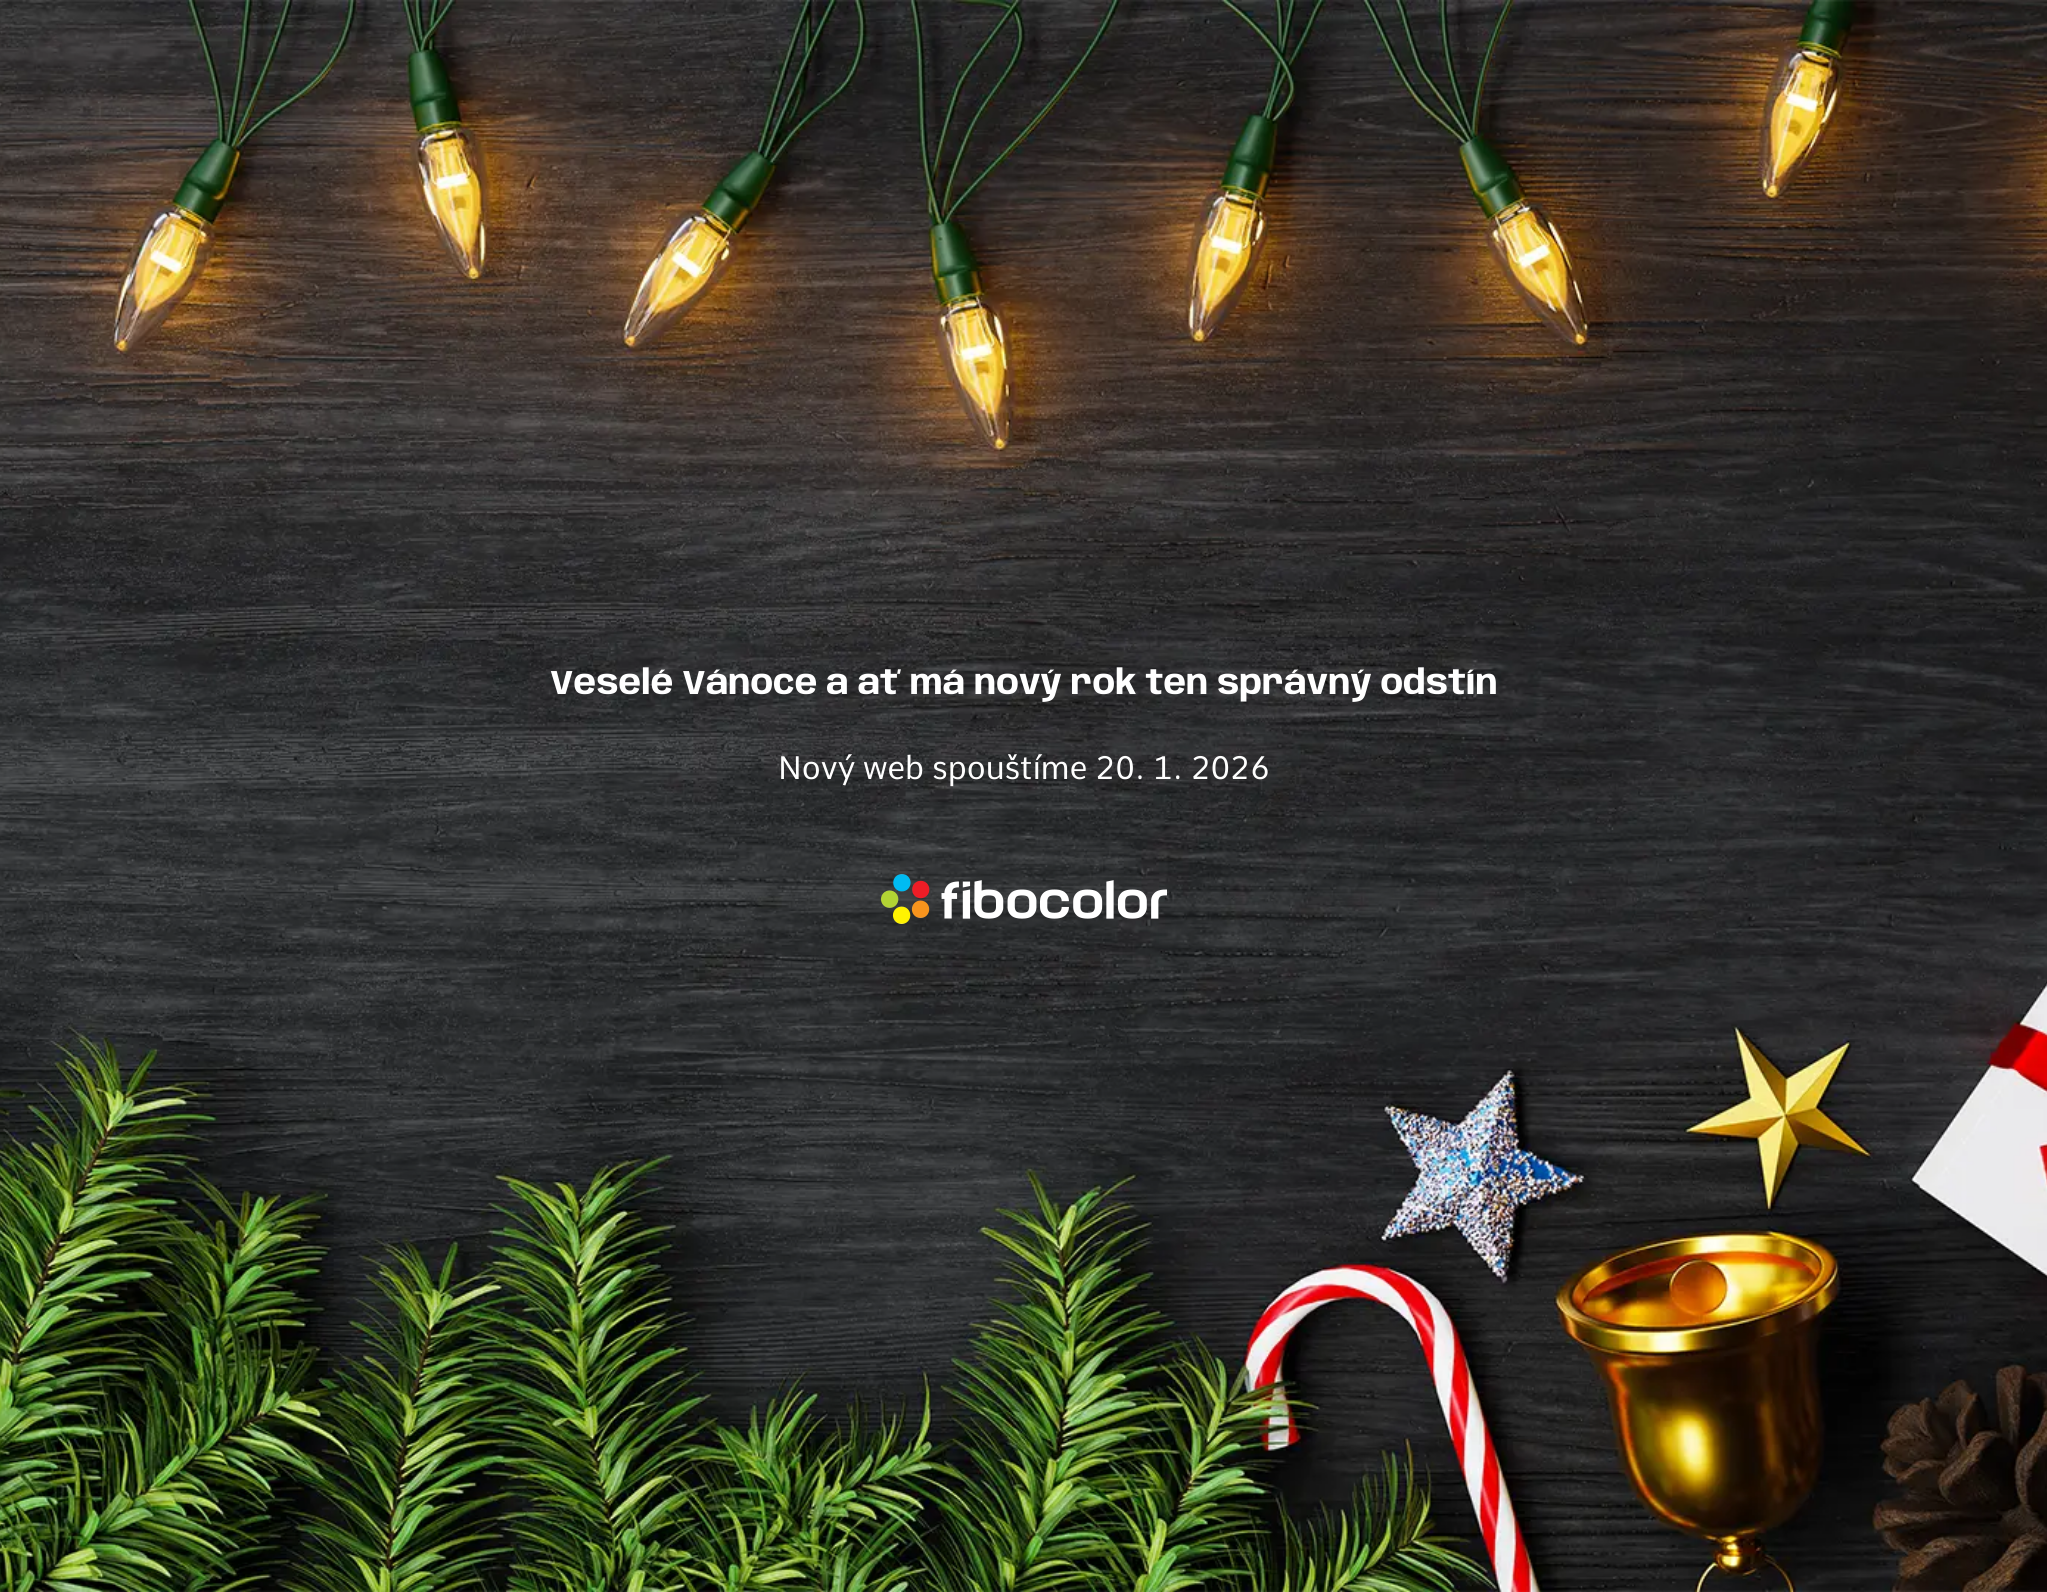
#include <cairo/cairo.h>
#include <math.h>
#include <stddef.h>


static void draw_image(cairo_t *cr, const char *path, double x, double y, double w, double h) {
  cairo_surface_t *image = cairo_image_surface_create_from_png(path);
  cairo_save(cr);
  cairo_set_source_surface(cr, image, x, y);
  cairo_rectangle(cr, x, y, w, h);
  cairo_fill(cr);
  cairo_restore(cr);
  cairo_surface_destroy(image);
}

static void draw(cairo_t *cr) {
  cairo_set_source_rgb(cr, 1, 1, 1);
  cairo_paint(cr);
  draw_image(cr, "images/1.png", 0, 0, 2047, 1592);
  draw_image(cr, "images/2.png", 881, 874, 286, 50);
  cairo_select_font_face(cr, "Anybody", CAIRO_FONT_SLANT_NORMAL, CAIRO_FONT_WEIGHT_BOLD);
  cairo_set_font_size(cr, 34);
  cairo_set_source_rgb(cr, 1, 1, 1);
  cairo_move_to(cr, 550, 694);
  cairo_show_text(cr, "Veselé Vánoce a ať má nový rok ten správný odstín");
  cairo_select_font_face(cr, "Comme", CAIRO_FONT_SLANT_NORMAL, CAIRO_FONT_WEIGHT_NORMAL);
  cairo_set_font_size(cr, 32);
  cairo_move_to(cr, 778, 779);
  cairo_show_text(cr, "Nový web spouštíme 20. 1. 2026");
}

int main(void) {
  cairo_surface_t *surface = cairo_image_surface_create(CAIRO_FORMAT_RGB24, 2047, 1592);
  cairo_t *cr = cairo_create(surface);
  cairo_font_options_t *options = cairo_font_options_create();
  cairo_font_options_set_hint_metrics(options, CAIRO_HINT_METRICS_OFF);
  cairo_font_options_set_hint_style(options, CAIRO_HINT_STYLE_NONE);
  cairo_set_font_options(cr, options);
  cairo_set_miter_limit(cr, 4);
  draw(cr);
  cairo_surface_write_to_png(surface, "out.png");
  cairo_font_options_destroy(options);
  cairo_destroy(cr);
  cairo_surface_destroy(surface);
  return 0;
}
